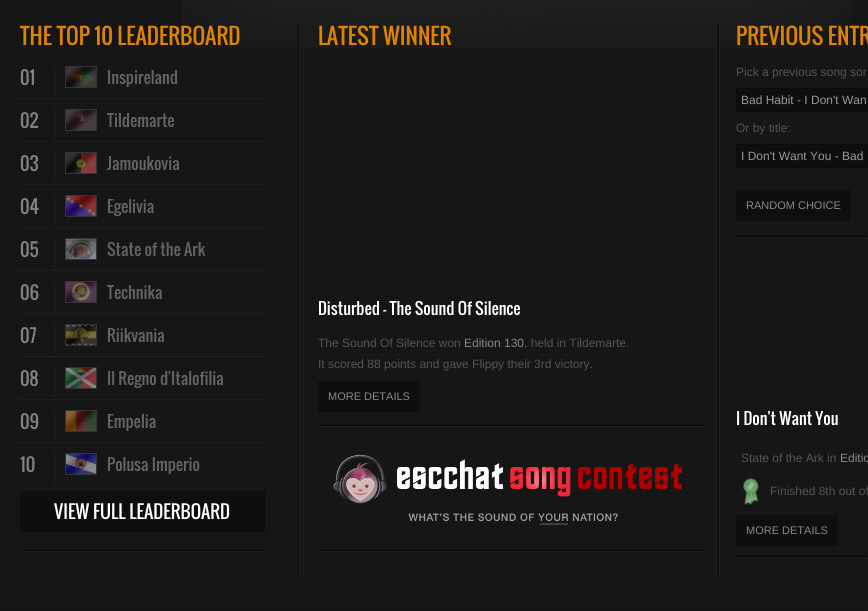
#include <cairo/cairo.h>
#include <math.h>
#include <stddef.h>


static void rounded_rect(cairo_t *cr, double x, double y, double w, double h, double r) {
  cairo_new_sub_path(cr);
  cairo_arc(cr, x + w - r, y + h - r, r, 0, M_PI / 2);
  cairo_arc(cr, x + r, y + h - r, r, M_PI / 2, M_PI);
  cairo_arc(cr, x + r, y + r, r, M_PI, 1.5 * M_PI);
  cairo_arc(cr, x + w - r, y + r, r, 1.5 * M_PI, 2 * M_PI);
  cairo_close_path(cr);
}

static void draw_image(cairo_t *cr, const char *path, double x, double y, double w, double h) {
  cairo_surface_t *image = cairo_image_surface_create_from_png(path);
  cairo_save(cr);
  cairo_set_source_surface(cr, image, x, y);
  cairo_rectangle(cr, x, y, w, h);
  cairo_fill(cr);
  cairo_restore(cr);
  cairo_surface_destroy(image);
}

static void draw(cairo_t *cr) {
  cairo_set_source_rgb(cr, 25 / 255.0, 25 / 255.0, 25 / 255.0);
  cairo_paint(cr);
  draw_image(cr, "images/1.png", 0, 0, 868, 611);
  draw_image(cr, "images/2.png", 182, 0, 671, 49);
  draw_image(cr, "images/3.png", 298, 25, 422, 553);
  draw_image(cr, "images/4.png", 20, 550, 245, 2);
  draw_image(cr, "images/5.png", 54, 66, 1, 30);
  cairo_rectangle(cr, 65.5, 66.5, 31, 21);
  cairo_set_source_rgba(cr, 85 / 255.0, 85 / 255.0, 85 / 255.0, 0.5);
  cairo_set_line_width(cr, 1);
  cairo_stroke(cr);
  draw_image(cr, "images/6.png", 66, 67, 30, 20);
  cairo_set_source_rgb(cr, 30 / 255.0, 30 / 255.0, 30 / 255.0);
  cairo_rectangle(cr, 20, 98, 245, 1);
  cairo_fill(cr);
  draw_image(cr, "images/7.png", 54, 109, 1, 30);
  cairo_rectangle(cr, 65.5, 109.5, 31, 21);
  cairo_set_source_rgba(cr, 85 / 255.0, 85 / 255.0, 85 / 255.0, 0.5);
  cairo_stroke(cr);
  draw_image(cr, "images/8.png", 66, 110, 30, 20);
  cairo_set_source_rgb(cr, 30 / 255.0, 30 / 255.0, 30 / 255.0);
  cairo_rectangle(cr, 20, 141, 245, 1);
  cairo_fill(cr);
  draw_image(cr, "images/5.png", 54, 152, 1, 30);
  cairo_rectangle(cr, 65.5, 152.5, 31, 21);
  cairo_set_source_rgba(cr, 85 / 255.0, 85 / 255.0, 85 / 255.0, 0.5);
  cairo_stroke(cr);
  draw_image(cr, "images/9.png", 66, 153, 30, 20);
  cairo_set_source_rgb(cr, 30 / 255.0, 30 / 255.0, 30 / 255.0);
  cairo_rectangle(cr, 20, 184, 245, 1);
  cairo_fill(cr);
  draw_image(cr, "images/7.png", 54, 195, 1, 30);
  cairo_rectangle(cr, 65.5, 195.5, 31, 21);
  cairo_set_source_rgba(cr, 85 / 255.0, 85 / 255.0, 85 / 255.0, 0.5);
  cairo_stroke(cr);
  draw_image(cr, "images/10.png", 66, 196, 30, 20);
  cairo_set_source_rgb(cr, 30 / 255.0, 30 / 255.0, 30 / 255.0);
  cairo_rectangle(cr, 20, 227, 245, 1);
  cairo_fill(cr);
  draw_image(cr, "images/5.png", 54, 238, 1, 30);
  cairo_rectangle(cr, 65.5, 238.5, 31, 21);
  cairo_set_source_rgba(cr, 85 / 255.0, 85 / 255.0, 85 / 255.0, 0.5);
  cairo_stroke(cr);
  draw_image(cr, "images/11.png", 66, 239, 30, 20);
  cairo_set_source_rgb(cr, 30 / 255.0, 30 / 255.0, 30 / 255.0);
  cairo_rectangle(cr, 20, 270, 245, 1);
  cairo_fill(cr);
  draw_image(cr, "images/7.png", 54, 281, 1, 30);
  cairo_rectangle(cr, 65.5, 281.5, 31, 21);
  cairo_set_source_rgba(cr, 85 / 255.0, 85 / 255.0, 85 / 255.0, 0.5);
  cairo_stroke(cr);
  draw_image(cr, "images/12.png", 66, 282, 30, 20);
  cairo_set_source_rgb(cr, 30 / 255.0, 30 / 255.0, 30 / 255.0);
  cairo_rectangle(cr, 20, 313, 245, 1);
  cairo_fill(cr);
  draw_image(cr, "images/5.png", 54, 324, 1, 30);
  cairo_rectangle(cr, 65.5, 324.5, 31, 21);
  cairo_set_source_rgba(cr, 85 / 255.0, 85 / 255.0, 85 / 255.0, 0.5);
  cairo_stroke(cr);
  draw_image(cr, "images/13.png", 66, 325, 30, 20);
  cairo_set_source_rgb(cr, 30 / 255.0, 30 / 255.0, 30 / 255.0);
  cairo_rectangle(cr, 20, 356, 245, 1);
  cairo_fill(cr);
  draw_image(cr, "images/7.png", 54, 367, 1, 30);
  cairo_rectangle(cr, 65.5, 367.5, 31, 21);
  cairo_set_source_rgba(cr, 85 / 255.0, 85 / 255.0, 85 / 255.0, 0.5);
  cairo_stroke(cr);
  draw_image(cr, "images/14.png", 66, 368, 30, 20);
  cairo_set_source_rgb(cr, 30 / 255.0, 30 / 255.0, 30 / 255.0);
  cairo_rectangle(cr, 20, 399, 245, 1);
  cairo_fill(cr);
  draw_image(cr, "images/5.png", 54, 410, 1, 30);
  cairo_rectangle(cr, 65.5, 410.5, 31, 21);
  cairo_set_source_rgba(cr, 85 / 255.0, 85 / 255.0, 85 / 255.0, 0.5);
  cairo_stroke(cr);
  draw_image(cr, "images/15.png", 66, 411, 30, 20);
  cairo_set_source_rgb(cr, 30 / 255.0, 30 / 255.0, 30 / 255.0);
  cairo_rectangle(cr, 20, 442, 245, 1);
  cairo_fill(cr);
  draw_image(cr, "images/7.png", 54, 453, 1, 30);
  cairo_rectangle(cr, 65.5, 453.5, 31, 21);
  cairo_set_source_rgba(cr, 85 / 255.0, 85 / 255.0, 85 / 255.0, 0.5);
  cairo_stroke(cr);
  draw_image(cr, "images/16.png", 66, 454, 30, 20);
  cairo_set_source_rgba(cr, 13 / 255.0, 13 / 255.0, 13 / 255.0, 0.82);
  cairo_rectangle(cr, 20, 491, 245, 41);
  cairo_fill(cr);
  draw_image(cr, "images/17.png", 318, 550, 390, 2);
  draw_image(cr, "images/17.png", 318, 425, 390, 2);
  cairo_rectangle(cr, 318, 381, 102, 31);
  cairo_fill(cr);
  draw_image(cr, "images/18.png", 333, 454, 349, 50);
  draw_image(cr, "images/19.png", 408, 513, 210, 12);
  cairo_set_source_rgb(cr, 14 / 255.0, 14 / 255.0, 14 / 255.0);
  rounded_rect(cr, 736.5, 88.5, 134, 23, 1.5);
  cairo_fill_preserve(cr);
  cairo_set_source_rgb(cr, 11 / 255.0, 11 / 255.0, 11 / 255.0);
  cairo_stroke(cr);
  cairo_set_source_rgb(cr, 14 / 255.0, 14 / 255.0, 14 / 255.0);
  rounded_rect(cr, 736.5, 144.5, 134, 23, 1.5);
  cairo_fill_preserve(cr);
  cairo_set_source_rgb(cr, 11 / 255.0, 11 / 255.0, 11 / 255.0);
  cairo_stroke(cr);
  cairo_set_source_rgba(cr, 13 / 255.0, 13 / 255.0, 13 / 255.0, 0.82);
  cairo_rectangle(cr, 736, 190, 115, 31);
  cairo_fill(cr);
  draw_image(cr, "images/20.png", 736, 236, 132, 2);
  draw_image(cr, "images/20.png", 736, 556, 132, 2);
  draw_image(cr, "images/21.png", 742, 478, 17, 27);
  cairo_rectangle(cr, 736, 515, 102, 31);
  cairo_fill(cr);
  cairo_select_font_face(cr, "Oswald", CAIRO_FONT_SLANT_NORMAL, CAIRO_FONT_WEIGHT_NORMAL);
  cairo_set_font_size(cr, 22);
  cairo_set_source_rgb(cr, 223 / 255.0, 131 / 255.0, 0);
  cairo_move_to(cr, 20, 45);
  cairo_show_text(cr, "THE TOP 10 LEADERBOARD");
  cairo_set_font_size(cr, 18);
  cairo_set_source_rgb(cr, 129 / 255.0, 129 / 255.0, 129 / 255.0);
  cairo_move_to(cr, 20, 85);
  cairo_show_text(cr, "01");
  cairo_set_font_size(cr, 16);
  cairo_set_source_rgb(cr, 100 / 255.0, 98 / 255.0, 98 / 255.0);
  cairo_move_to(cr, 107, 84);
  cairo_show_text(cr, "Inspireland");
  cairo_set_font_size(cr, 18);
  cairo_set_source_rgb(cr, 129 / 255.0, 129 / 255.0, 129 / 255.0);
  cairo_move_to(cr, 20, 128);
  cairo_show_text(cr, "02");
  cairo_set_font_size(cr, 16);
  cairo_set_source_rgb(cr, 100 / 255.0, 98 / 255.0, 98 / 255.0);
  cairo_move_to(cr, 107, 127);
  cairo_show_text(cr, "Tildemarte");
  cairo_set_font_size(cr, 18);
  cairo_set_source_rgb(cr, 129 / 255.0, 129 / 255.0, 129 / 255.0);
  cairo_move_to(cr, 20, 171);
  cairo_show_text(cr, "03");
  cairo_set_font_size(cr, 16);
  cairo_set_source_rgb(cr, 100 / 255.0, 98 / 255.0, 98 / 255.0);
  cairo_move_to(cr, 107, 170);
  cairo_show_text(cr, "Jamoukovia");
  cairo_set_font_size(cr, 18);
  cairo_set_source_rgb(cr, 129 / 255.0, 129 / 255.0, 129 / 255.0);
  cairo_move_to(cr, 20, 214);
  cairo_show_text(cr, "04");
  cairo_set_font_size(cr, 16);
  cairo_set_source_rgb(cr, 100 / 255.0, 98 / 255.0, 98 / 255.0);
  cairo_move_to(cr, 107, 213);
  cairo_show_text(cr, "Egelivia");
  cairo_set_font_size(cr, 18);
  cairo_set_source_rgb(cr, 129 / 255.0, 129 / 255.0, 129 / 255.0);
  cairo_move_to(cr, 20, 257);
  cairo_show_text(cr, "05");
  cairo_set_font_size(cr, 16);
  cairo_set_source_rgb(cr, 100 / 255.0, 98 / 255.0, 98 / 255.0);
  cairo_move_to(cr, 107, 256);
  cairo_show_text(cr, "State of the Ark");
  cairo_set_font_size(cr, 18);
  cairo_set_source_rgb(cr, 129 / 255.0, 129 / 255.0, 129 / 255.0);
  cairo_move_to(cr, 20, 300);
  cairo_show_text(cr, "06");
  cairo_set_font_size(cr, 16);
  cairo_set_source_rgb(cr, 100 / 255.0, 98 / 255.0, 98 / 255.0);
  cairo_move_to(cr, 107, 299);
  cairo_show_text(cr, "Technika");
  cairo_set_font_size(cr, 18);
  cairo_set_source_rgb(cr, 129 / 255.0, 129 / 255.0, 129 / 255.0);
  cairo_move_to(cr, 20, 343);
  cairo_show_text(cr, "07");
  cairo_set_font_size(cr, 16);
  cairo_set_source_rgb(cr, 100 / 255.0, 98 / 255.0, 98 / 255.0);
  cairo_move_to(cr, 107, 342);
  cairo_show_text(cr, "Riikvania");
  cairo_set_font_size(cr, 18);
  cairo_set_source_rgb(cr, 129 / 255.0, 129 / 255.0, 129 / 255.0);
  cairo_move_to(cr, 20, 386);
  cairo_show_text(cr, "08");
  cairo_set_font_size(cr, 16);
  cairo_set_source_rgb(cr, 100 / 255.0, 98 / 255.0, 98 / 255.0);
  cairo_move_to(cr, 107, 385);
  cairo_show_text(cr, "Il Regno d'Italofilia");
  cairo_set_font_size(cr, 18);
  cairo_set_source_rgb(cr, 129 / 255.0, 129 / 255.0, 129 / 255.0);
  cairo_move_to(cr, 20, 429);
  cairo_show_text(cr, "09");
  cairo_set_font_size(cr, 16);
  cairo_set_source_rgb(cr, 100 / 255.0, 98 / 255.0, 98 / 255.0);
  cairo_move_to(cr, 107, 428);
  cairo_show_text(cr, "Empelia");
  cairo_set_font_size(cr, 18);
  cairo_set_source_rgb(cr, 129 / 255.0, 129 / 255.0, 129 / 255.0);
  cairo_move_to(cr, 20, 472);
  cairo_show_text(cr, "10");
  cairo_set_font_size(cr, 16);
  cairo_set_source_rgb(cr, 100 / 255.0, 98 / 255.0, 98 / 255.0);
  cairo_move_to(cr, 107, 471);
  cairo_show_text(cr, "Polusa Imperio");
  cairo_set_font_size(cr, 18);
  cairo_set_source_rgb(cr, 1, 1, 1);
  cairo_move_to(cr, 54, 519);
  cairo_show_text(cr, "VIEW FULL LEADERBOARD");
  cairo_set_font_size(cr, 22);
  cairo_set_source_rgb(cr, 223 / 255.0, 131 / 255.0, 0);
  cairo_move_to(cr, 318, 45);
  cairo_show_text(cr, "LATEST WINNER");
  cairo_set_font_size(cr, 16);
  cairo_set_source_rgb(cr, 1, 1, 1);
  cairo_move_to(cr, 318, 315);
  cairo_show_text(cr, "Disturbed - The Sound Of Silence");
  cairo_select_font_face(cr, "Liberation Sans", CAIRO_FONT_SLANT_NORMAL, CAIRO_FONT_WEIGHT_NORMAL);
  cairo_set_font_size(cr, 12);
  cairo_set_source_rgb(cr, 84 / 255.0, 84 / 255.0, 84 / 255.0);
  cairo_move_to(cr, 318, 347);
  cairo_show_text(cr, "The Sound Of Silence won");
  cairo_set_source_rgb(cr, 136 / 255.0, 136 / 255.0, 136 / 255.0);
  cairo_move_to(cr, 464, 347);
  cairo_show_text(cr, "Edition 130");
  cairo_set_source_rgb(cr, 84 / 255.0, 84 / 255.0, 84 / 255.0);
  cairo_move_to(cr, 524, 347);
  cairo_show_text(cr, ", held in Tildemarte.");
  cairo_move_to(cr, 318, 368);
  cairo_show_text(cr, "It scored 88 points and gave Flippy their 3rd victory.");
  cairo_set_font_size(cr, 11);
  cairo_set_source_rgb(cr, 136 / 255.0, 136 / 255.0, 136 / 255.0);
  cairo_move_to(cr, 328, 400);
  cairo_show_text(cr, "MORE DETAILS");
  cairo_select_font_face(cr, "Oswald", CAIRO_FONT_SLANT_NORMAL, CAIRO_FONT_WEIGHT_NORMAL);
  cairo_set_font_size(cr, 22);
  cairo_set_source_rgb(cr, 223 / 255.0, 131 / 255.0, 0);
  cairo_move_to(cr, 736, 45);
  cairo_show_text(cr, "PREVIOUS ENTR");
  cairo_select_font_face(cr, "Liberation Sans", CAIRO_FONT_SLANT_NORMAL, CAIRO_FONT_WEIGHT_NORMAL);
  cairo_set_font_size(cr, 12);
  cairo_set_source_rgb(cr, 84 / 255.0, 84 / 255.0, 84 / 255.0);
  cairo_move_to(cr, 736, 76);
  cairo_show_text(cr, "Pick a previous song sor");
  cairo_set_source_rgb(cr, 153 / 255.0, 153 / 255.0, 153 / 255.0);
  cairo_move_to(cr, 741, 104);
  cairo_show_text(cr, "Bad Habit - I Don't Wan");
  cairo_set_source_rgb(cr, 84 / 255.0, 84 / 255.0, 84 / 255.0);
  cairo_move_to(cr, 736, 132);
  cairo_show_text(cr, "Or by title:");
  cairo_set_source_rgb(cr, 153 / 255.0, 153 / 255.0, 153 / 255.0);
  cairo_move_to(cr, 741, 160);
  cairo_show_text(cr, "I Don't Want You - Bad");
  cairo_set_font_size(cr, 11);
  cairo_set_source_rgb(cr, 136 / 255.0, 136 / 255.0, 136 / 255.0);
  cairo_move_to(cr, 746, 209);
  cairo_show_text(cr, "RANDOM CHOICE");
  cairo_select_font_face(cr, "Oswald", CAIRO_FONT_SLANT_NORMAL, CAIRO_FONT_WEIGHT_NORMAL);
  cairo_set_font_size(cr, 16);
  cairo_set_source_rgb(cr, 1, 1, 1);
  cairo_move_to(cr, 736, 425);
  cairo_show_text(cr, "I Don't Want You");
  cairo_select_font_face(cr, "Liberation Sans", CAIRO_FONT_SLANT_NORMAL, CAIRO_FONT_WEIGHT_NORMAL);
  cairo_set_font_size(cr, 12);
  cairo_set_source_rgb(cr, 84 / 255.0, 84 / 255.0, 84 / 255.0);
  cairo_move_to(cr, 741, 462);
  cairo_show_text(cr, "State of the Ark in");
  cairo_set_source_rgb(cr, 136 / 255.0, 136 / 255.0, 136 / 255.0);
  cairo_move_to(cr, 840, 462);
  cairo_show_text(cr, "Editio");
  cairo_set_source_rgb(cr, 84 / 255.0, 84 / 255.0, 84 / 255.0);
  cairo_move_to(cr, 770, 495);
  cairo_show_text(cr, "Finished 8th out of");
  cairo_set_font_size(cr, 11);
  cairo_set_source_rgb(cr, 136 / 255.0, 136 / 255.0, 136 / 255.0);
  cairo_move_to(cr, 746, 534);
  cairo_show_text(cr, "MORE DETAILS");
}

int main(void) {
  cairo_surface_t *surface = cairo_image_surface_create(CAIRO_FORMAT_RGB24, 868, 611);
  cairo_t *cr = cairo_create(surface);
  cairo_font_options_t *options = cairo_font_options_create();
  cairo_font_options_set_hint_metrics(options, CAIRO_HINT_METRICS_OFF);
  cairo_font_options_set_hint_style(options, CAIRO_HINT_STYLE_NONE);
  cairo_set_font_options(cr, options);
  cairo_set_miter_limit(cr, 4);
  draw(cr);
  cairo_surface_write_to_png(surface, "out.png");
  cairo_font_options_destroy(options);
  cairo_destroy(cr);
  cairo_surface_destroy(surface);
  return 0;
}
